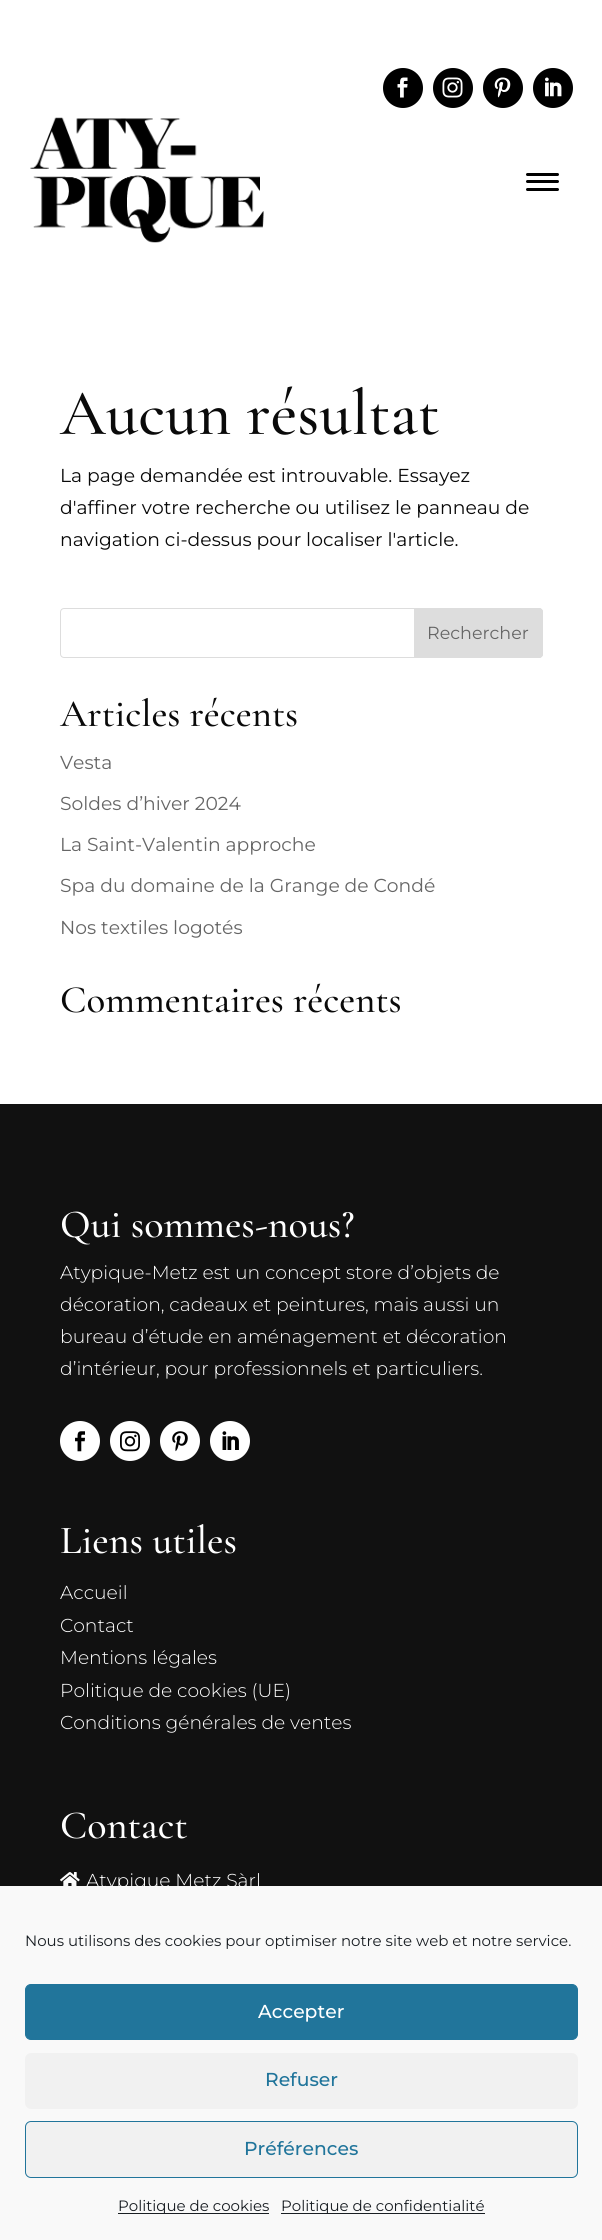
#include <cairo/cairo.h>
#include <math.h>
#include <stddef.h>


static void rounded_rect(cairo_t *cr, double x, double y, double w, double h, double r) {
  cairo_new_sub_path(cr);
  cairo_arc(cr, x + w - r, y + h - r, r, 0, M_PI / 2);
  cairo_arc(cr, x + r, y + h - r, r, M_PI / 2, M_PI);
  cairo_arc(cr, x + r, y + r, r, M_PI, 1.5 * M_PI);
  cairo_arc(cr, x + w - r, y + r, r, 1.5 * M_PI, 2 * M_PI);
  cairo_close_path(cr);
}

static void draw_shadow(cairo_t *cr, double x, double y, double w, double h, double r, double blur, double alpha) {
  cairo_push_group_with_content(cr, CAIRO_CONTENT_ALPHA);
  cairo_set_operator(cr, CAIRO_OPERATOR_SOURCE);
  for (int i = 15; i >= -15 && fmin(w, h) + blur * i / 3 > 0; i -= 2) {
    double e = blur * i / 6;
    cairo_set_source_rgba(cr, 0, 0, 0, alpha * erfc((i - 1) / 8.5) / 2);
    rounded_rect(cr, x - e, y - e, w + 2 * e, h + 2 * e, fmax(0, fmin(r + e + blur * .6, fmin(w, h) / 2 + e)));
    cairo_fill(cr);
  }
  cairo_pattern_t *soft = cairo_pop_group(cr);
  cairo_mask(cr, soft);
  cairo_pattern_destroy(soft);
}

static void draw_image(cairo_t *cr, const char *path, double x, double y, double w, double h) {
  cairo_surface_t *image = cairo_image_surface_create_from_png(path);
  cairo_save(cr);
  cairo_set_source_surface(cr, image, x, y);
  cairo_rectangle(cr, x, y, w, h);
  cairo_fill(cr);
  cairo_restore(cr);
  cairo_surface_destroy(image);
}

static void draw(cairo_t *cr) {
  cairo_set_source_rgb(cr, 1, 1, 1);
  cairo_paint(cr);
  cairo_set_source_rgb(cr, 0, 0, 0);
  cairo_arc(cr, 403, 88, 20, 0, 2 * M_PI);
  cairo_fill(cr);
  draw_image(cr, "images/1.png", 397, 77, 11, 21);
  cairo_arc(cr, 453, 88, 20, 0, 2 * M_PI);
  cairo_fill(cr);
  draw_image(cr, "images/2.png", 442, 77, 21, 21);
  cairo_arc(cr, 503, 88, 20, 0, 2 * M_PI);
  cairo_fill(cr);
  draw_image(cr, "images/3.png", 494, 77, 17, 21);
  cairo_arc(cr, 553, 88, 20, 0, 2 * M_PI);
  cairo_fill(cr);
  draw_image(cr, "images/4.png", 545, 77, 17, 20);
  draw_image(cr, "images/5.png", 30, 117, 234, 126);
  rounded_rect(cr, 526, 173, 33, 3, 1.5);
  cairo_fill(cr);
  rounded_rect(cr, 526, 180, 33, 3, 1.5);
  cairo_fill(cr);
  rounded_rect(cr, 526, 188, 33, 3, 1.5);
  cairo_fill(cr);
  rounded_rect(cr, 60.5, 608.5, 482, 49, 3.5);
  cairo_set_source_rgb(cr, 221 / 255.0, 221 / 255.0, 221 / 255.0);
  cairo_set_line_width(cr, 1);
  cairo_stroke(cr);
  cairo_new_path(cr);
  cairo_move_to(cr, 414.5, 608.5);
  cairo_line_to(cr, 539, 608.5);
  cairo_curve_to(cr, 541, 608.5, 542.5, 610, 542.5, 612);
  cairo_line_to(cr, 542.5, 654);
  cairo_curve_to(cr, 542.5, 656, 541, 657.5, 539, 657.5);
  cairo_line_to(cr, 414.5, 657.5);
  cairo_close_path(cr);
  cairo_fill_preserve(cr);
  cairo_stroke(cr);
  cairo_set_source_rgb(cr, 17 / 255.0, 17 / 255.0, 17 / 255.0);
  cairo_rectangle(cr, 0, 1104, 602, 782);
  cairo_fill(cr);
  cairo_set_source_rgb(cr, 1, 1, 1);
  cairo_arc(cr, 80, 1441, 20, 0, 2 * M_PI);
  cairo_fill(cr);
  draw_image(cr, "images/6.png", 75, 1431, 10, 21);
  cairo_arc(cr, 130, 1441, 20, 0, 2 * M_PI);
  cairo_fill(cr);
  draw_image(cr, "images/7.png", 120, 1431, 20, 21);
  cairo_arc(cr, 180, 1441, 20, 0, 2 * M_PI);
  cairo_fill(cr);
  draw_image(cr, "images/8.png", 172, 1431, 16, 21);
  cairo_arc(cr, 230, 1441, 20, 0, 2 * M_PI);
  cairo_fill(cr);
  draw_image(cr, "images/9.png", 222, 1431, 17, 19);
  draw_image(cr, "images/10.png", 60, 1872, 20, 14);
  cairo_set_source_rgb(cr, 0, 0, 0);
  draw_shadow(cr, 0, 1899, 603, 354, 0, 12.5, 0.19);
  cairo_select_font_face(cr, "Cormorant Garamond Light", CAIRO_FONT_SLANT_NORMAL, CAIRO_FONT_WEIGHT_NORMAL);
  cairo_set_font_size(cr, 65);
  cairo_set_source_rgb(cr, 10 / 255.0, 10 / 255.0, 10 / 255.0);
  cairo_move_to(cr, 60, 434);
  cairo_show_text(cr, "Aucun résultat");
  cairo_select_font_face(cr, "Montserrat Thin", CAIRO_FONT_SLANT_NORMAL, CAIRO_FONT_WEIGHT_NORMAL);
  cairo_set_font_size(cr, 18.75);
  cairo_move_to(cr, 60, 482);
  cairo_show_text(cr, "La page demandée est introuvable. Essayez");
  cairo_move_to(cr, 60, 514);
  cairo_show_text(cr, "d'affiner votre recherche ou utilisez le panneau de");
  cairo_move_to(cr, 60, 546);
  cairo_show_text(cr, "navigation ci-dessus pour localiser l'article.");
  cairo_set_font_size(cr, 17.5);
  cairo_set_source_rgb(cr, 102 / 255.0, 102 / 255.0, 102 / 255.0);
  cairo_move_to(cr, 427, 639);
  cairo_show_text(cr, "Rechercher");
  cairo_select_font_face(cr, "Cormorant Garamond Light", CAIRO_FONT_SLANT_NORMAL, CAIRO_FONT_WEIGHT_NORMAL);
  cairo_set_font_size(cr, 38.75);
  cairo_set_source_rgb(cr, 10 / 255.0, 10 / 255.0, 10 / 255.0);
  cairo_move_to(cr, 60, 726);
  cairo_show_text(cr, "Articles récents");
  cairo_select_font_face(cr, "Montserrat Thin", CAIRO_FONT_SLANT_NORMAL, CAIRO_FONT_WEIGHT_NORMAL);
  cairo_set_font_size(cr, 18.75);
  cairo_set_source_rgb(cr, 102 / 255.0, 102 / 255.0, 102 / 255.0);
  cairo_move_to(cr, 60, 769);
  cairo_show_text(cr, "Vesta");
  cairo_move_to(cr, 60, 810);
  cairo_show_text(cr, "Soldes d’hiver 2024");
  cairo_move_to(cr, 60, 851);
  cairo_show_text(cr, "La Saint-Valentin approche");
  cairo_move_to(cr, 60, 892);
  cairo_show_text(cr, "Spa du domaine de la Grange de Condé");
  cairo_move_to(cr, 60, 934);
  cairo_show_text(cr, "Nos textiles logotés");
  cairo_select_font_face(cr, "Cormorant Garamond Light", CAIRO_FONT_SLANT_NORMAL, CAIRO_FONT_WEIGHT_NORMAL);
  cairo_set_font_size(cr, 38.75);
  cairo_set_source_rgb(cr, 10 / 255.0, 10 / 255.0, 10 / 255.0);
  cairo_move_to(cr, 60, 1012);
  cairo_show_text(cr, "Commentaires récents");
  cairo_set_font_size(cr, 40);
  cairo_set_source_rgb(cr, 1, 1, 1);
  cairo_move_to(cr, 60, 1237);
  cairo_show_text(cr, "Qui sommes-nous?");
  cairo_select_font_face(cr, "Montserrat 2 Thin", CAIRO_FONT_SLANT_NORMAL, CAIRO_FONT_WEIGHT_NORMAL);
  cairo_set_font_size(cr, 18.75);
  cairo_move_to(cr, 60, 1279);
  cairo_show_text(cr, "Atypique-Metz est un concept store d’objets de");
  cairo_move_to(cr, 60, 1311);
  cairo_show_text(cr, "décoration, cadeaux et peintures, mais aussi un");
  cairo_move_to(cr, 60, 1343);
  cairo_show_text(cr, "bureau d’étude en aménagement et décoration");
  cairo_move_to(cr, 60, 1375);
  cairo_show_text(cr, "d’intérieur, pour professionnels et particuliers.");
  cairo_select_font_face(cr, "Cormorant Garamond Light", CAIRO_FONT_SLANT_NORMAL, CAIRO_FONT_WEIGHT_NORMAL);
  cairo_set_font_size(cr, 40);
  cairo_move_to(cr, 60, 1553);
  cairo_show_text(cr, "Liens utiles");
  cairo_select_font_face(cr, "Montserrat 2 Thin", CAIRO_FONT_SLANT_NORMAL, CAIRO_FONT_WEIGHT_NORMAL);
  cairo_set_font_size(cr, 18.75);
  cairo_move_to(cr, 60, 1599);
  cairo_show_text(cr, "Accueil");
  cairo_move_to(cr, 60, 1632);
  cairo_show_text(cr, "Contact");
  cairo_move_to(cr, 60, 1664);
  cairo_show_text(cr, "Mentions légales");
  cairo_move_to(cr, 60, 1697);
  cairo_show_text(cr, "Politique de cookies (UE)");
  cairo_move_to(cr, 60, 1729);
  cairo_show_text(cr, "Conditions générales de ventes");
  cairo_select_font_face(cr, "Cormorant Garamond Light", CAIRO_FONT_SLANT_NORMAL, CAIRO_FONT_WEIGHT_NORMAL);
  cairo_set_font_size(cr, 40);
  cairo_move_to(cr, 60, 1838);
  cairo_show_text(cr, "Contact");
  cairo_select_font_face(cr, "Montserrat 2 Thin", CAIRO_FONT_SLANT_NORMAL, CAIRO_FONT_WEIGHT_NORMAL);
  cairo_set_font_size(cr, 18.75);
  cairo_move_to(cr, 86, 1887);
  cairo_show_text(cr, "Atypique Metz Sàrl");
  cairo_set_source_rgb(cr, 249 / 255.0, 249 / 255.0, 249 / 255.0);
  cairo_rectangle(cr, 0, 1887, 602, 353);
  cairo_fill(cr);
  cairo_select_font_face(cr, "Montserrat Thin", CAIRO_FONT_SLANT_NORMAL, CAIRO_FONT_WEIGHT_NORMAL);
  cairo_set_font_size(cr, 15);
  cairo_set_source_rgb(cr, 25 / 255.0, 30 / 255.0, 35 / 255.0);
  cairo_move_to(cr, 25, 1946);
  cairo_show_text(cr, "Nous utilisons des cookies pour optimiser notre site web et notre service.");
  cairo_set_source_rgb(cr, 33 / 255.0, 117 / 255.0, 155 / 255.0);
  rounded_rect(cr, 25.5, 1984.5, 552, 55, 5.5);
  cairo_fill_preserve(cr);
  cairo_stroke(cr);
  cairo_select_font_face(cr, "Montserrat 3 Thin", CAIRO_FONT_SLANT_NORMAL, CAIRO_FONT_WEIGHT_NORMAL);
  cairo_set_font_size(cr, 18.75);
  cairo_set_source_rgb(cr, 1, 1, 1);
  cairo_move_to(cr, 258, 2018);
  cairo_show_text(cr, "Accepter");
  cairo_set_source_rgb(cr, 241 / 255.0, 241 / 255.0, 241 / 255.0);
  rounded_rect(cr, 25, 2053, 553, 56, 6);
  cairo_fill(cr);
  cairo_set_source_rgb(cr, 33 / 255.0, 117 / 255.0, 155 / 255.0);
  cairo_move_to(cr, 265, 2086);
  cairo_show_text(cr, "Refuser");
  cairo_set_source_rgb(cr, 241 / 255.0, 241 / 255.0, 241 / 255.0);
  rounded_rect(cr, 25.5, 2121.5, 552, 56, 5.5);
  cairo_fill_preserve(cr);
  cairo_set_source_rgb(cr, 33 / 255.0, 117 / 255.0, 155 / 255.0);
  cairo_stroke(cr);
  cairo_move_to(cr, 244, 2155);
  cairo_show_text(cr, "Préférences");
  cairo_set_source_rgb(cr, 25 / 255.0, 30 / 255.0, 35 / 255.0);
  cairo_rectangle(cr, 118, 2213, 151, 1);
  cairo_fill(cr);
  cairo_select_font_face(cr, "Montserrat Thin", CAIRO_FONT_SLANT_NORMAL, CAIRO_FONT_WEIGHT_NORMAL);
  cairo_set_font_size(cr, 15);
  cairo_move_to(cr, 118, 2211);
  cairo_show_text(cr, "Politique de cookies");
  cairo_rectangle(cr, 281, 2213, 204, 1);
  cairo_fill(cr);
  cairo_move_to(cr, 281, 2211);
  cairo_show_text(cr, "Politique de confidentialité");
}

int main(void) {
  cairo_surface_t *surface = cairo_image_surface_create(CAIRO_FORMAT_RGB24, 602, 2240);
  cairo_t *cr = cairo_create(surface);
  cairo_font_options_t *options = cairo_font_options_create();
  cairo_font_options_set_hint_metrics(options, CAIRO_HINT_METRICS_OFF);
  cairo_font_options_set_hint_style(options, CAIRO_HINT_STYLE_NONE);
  cairo_set_font_options(cr, options);
  cairo_set_miter_limit(cr, 4);
  draw(cr);
  cairo_surface_write_to_png(surface, "out.png");
  cairo_font_options_destroy(options);
  cairo_destroy(cr);
  cairo_surface_destroy(surface);
  return 0;
}
